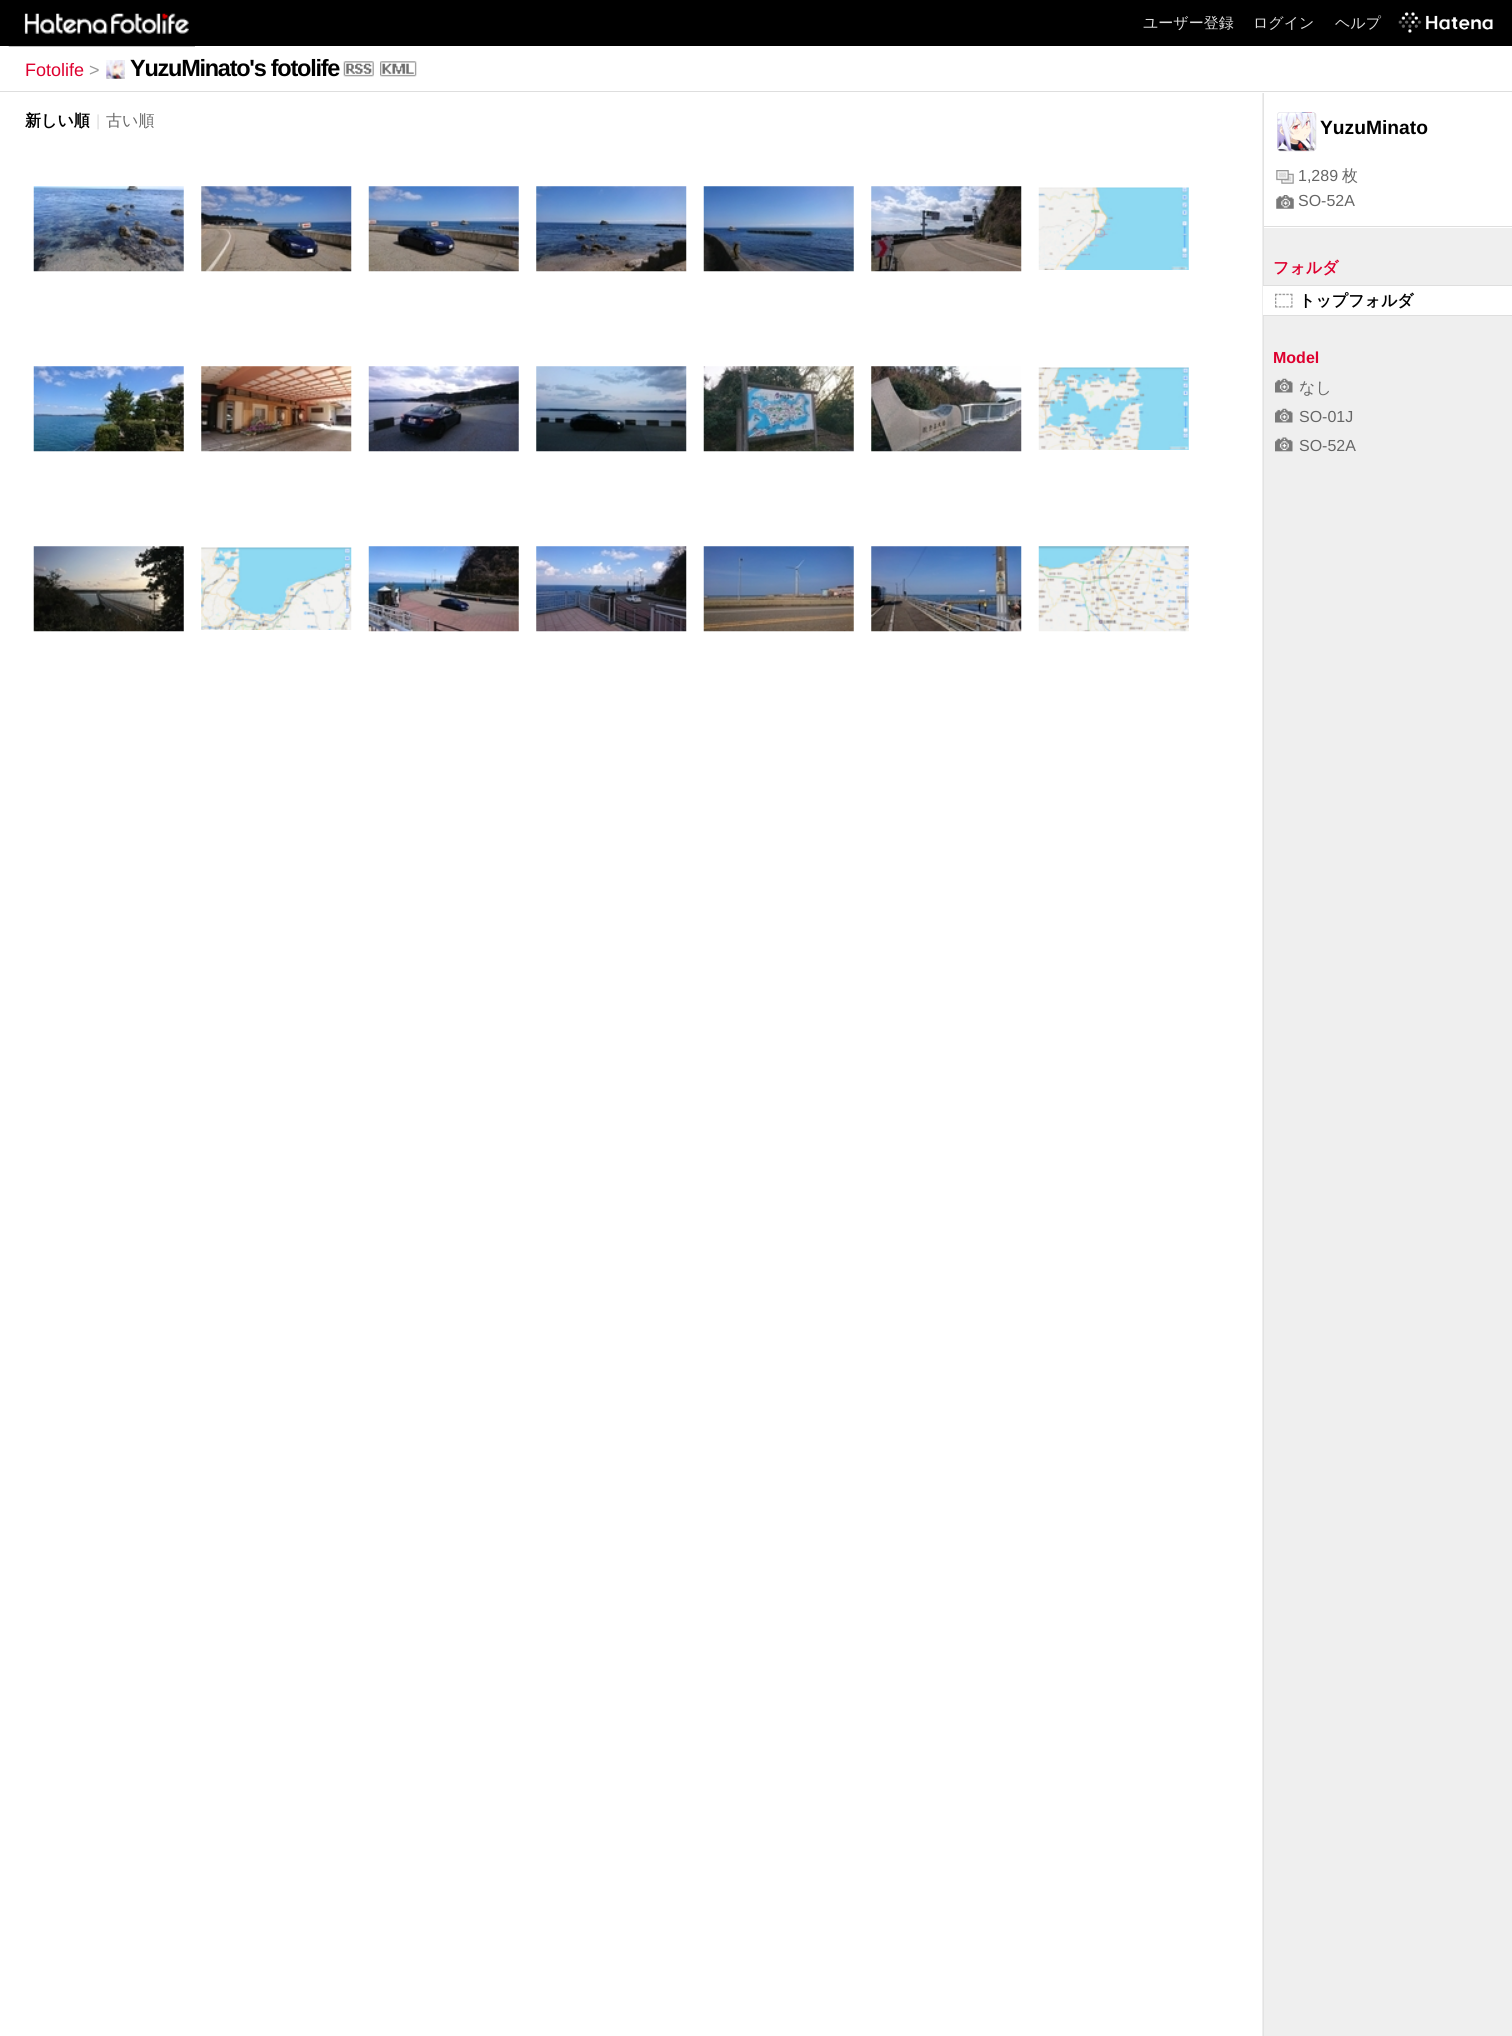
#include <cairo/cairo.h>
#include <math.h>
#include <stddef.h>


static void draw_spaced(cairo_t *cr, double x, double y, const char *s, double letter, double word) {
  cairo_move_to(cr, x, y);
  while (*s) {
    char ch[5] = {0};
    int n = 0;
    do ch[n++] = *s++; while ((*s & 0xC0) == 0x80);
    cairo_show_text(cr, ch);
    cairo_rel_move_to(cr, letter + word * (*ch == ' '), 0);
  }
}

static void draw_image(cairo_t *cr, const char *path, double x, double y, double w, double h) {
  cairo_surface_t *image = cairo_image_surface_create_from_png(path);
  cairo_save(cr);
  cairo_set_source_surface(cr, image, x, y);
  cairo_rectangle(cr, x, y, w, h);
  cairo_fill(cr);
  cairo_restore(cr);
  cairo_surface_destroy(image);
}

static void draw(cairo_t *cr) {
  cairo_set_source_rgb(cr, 1, 1, 1);
  cairo_paint(cr);
  draw_image(cr, "images/1.png", 1262, 93, 250, 1943);
  cairo_set_source_rgb(cr, 0, 0, 0);
  cairo_rectangle(cr, 0, 0, 1512, 46);
  cairo_fill(cr);
  draw_image(cr, "images/2.png", 8, 13, 104, 34);
  draw_image(cr, "images/3.png", 111, 13, 84, 34);
  draw_image(cr, "images/4.png", 1398, 12, 95, 21);
  cairo_set_source_rgb(cr, 222 / 255.0, 222 / 255.0, 222 / 255.0);
  cairo_rectangle(cr, 0, 91, 1512, 1);
  cairo_fill(cr);
  draw_image(cr, "images/5.png", 106, 60, 19, 19);
  draw_image(cr, "images/6.png", 343, 61, 31, 16);
  draw_image(cr, "images/7.png", 380, 61, 37, 16);
  draw_image(cr, "images/8.png", 33, 186, 151, 86);
  draw_image(cr, "images/9.png", 201, 186, 151, 86);
  draw_image(cr, "images/10.png", 368, 186, 151, 86);
  draw_image(cr, "images/11.png", 536, 186, 151, 86);
  draw_image(cr, "images/12.png", 703, 186, 151, 86);
  draw_image(cr, "images/13.png", 871, 186, 151, 86);
  draw_image(cr, "images/14.png", 1038, 187, 151, 83);
  draw_image(cr, "images/15.png", 33, 366, 151, 86);
  draw_image(cr, "images/16.png", 201, 366, 151, 86);
  draw_image(cr, "images/17.png", 368, 366, 151, 86);
  draw_image(cr, "images/18.png", 536, 366, 151, 86);
  draw_image(cr, "images/19.png", 703, 366, 151, 86);
  draw_image(cr, "images/20.png", 871, 366, 151, 86);
  draw_image(cr, "images/21.png", 1038, 367, 151, 83);
  draw_image(cr, "images/22.png", 33, 546, 151, 86);
  draw_image(cr, "images/23.png", 201, 547, 151, 83);
  draw_image(cr, "images/24.png", 368, 546, 151, 86);
  draw_image(cr, "images/25.png", 536, 546, 151, 86);
  draw_image(cr, "images/26.png", 703, 546, 151, 86);
  draw_image(cr, "images/27.png", 871, 546, 151, 86);
  draw_image(cr, "images/28.png", 1038, 546, 151, 86);
  cairo_set_source_rgb(cr, 1, 1, 1);
  cairo_rectangle(cr, 1264, 93, 248, 135);
  cairo_fill(cr);
  cairo_set_source_rgb(cr, 222 / 255.0, 222 / 255.0, 222 / 255.0);
  cairo_rectangle(cr, 1264, 226, 248, 1);
  cairo_fill(cr);
  draw_image(cr, "images/29.png", 1277, 112, 40, 40);
  draw_image(cr, "images/30.png", 1276, 170, 18, 14);
  draw_image(cr, "images/31.png", 1276, 195, 18, 14);
  cairo_set_source_rgb(cr, 1, 1, 1);
  cairo_rectangle(cr, 1263, 286, 249, 29);
  cairo_fill(cr);
  cairo_set_source_rgb(cr, 222 / 255.0, 222 / 255.0, 222 / 255.0);
  cairo_rectangle(cr, 1263, 285, 249, 1);
  cairo_fill(cr);
  cairo_rectangle(cr, 1263, 315, 249, 1);
  cairo_fill(cr);
  draw_image(cr, "images/32.png", 1275, 293, 18, 15);
  draw_image(cr, "images/33.png", 1275, 378, 18, 15);
  draw_image(cr, "images/33.png", 1275, 408, 18, 15);
  draw_image(cr, "images/34.png", 1275, 437, 18, 15);
  cairo_select_font_face(cr, "WenQuanYi Zen Hei Medium", CAIRO_FONT_SLANT_NORMAL, CAIRO_FONT_WEIGHT_NORMAL);
  cairo_set_font_size(cr, 15);
  cairo_move_to(cr, 1143, 28);
  cairo_show_text(cr, "ユーザー登録");
  cairo_move_to(cr, 1253, 28);
  cairo_show_text(cr, "ログイン");
  cairo_move_to(cr, 1335, 28);
  cairo_show_text(cr, "ヘルプ");
  cairo_select_font_face(cr, "Liberation Sans", CAIRO_FONT_SLANT_NORMAL, CAIRO_FONT_WEIGHT_NORMAL);
  cairo_set_font_size(cr, 18);
  cairo_set_source_rgb(cr, 222 / 255.0, 0, 47 / 255.0);
  cairo_move_to(cr, 25, 76);
  cairo_show_text(cr, "Fotolife");
  cairo_set_source_rgb(cr, 153 / 255.0, 153 / 255.0, 153 / 255.0);
  cairo_move_to(cr, 89, 76);
  cairo_show_text(cr, ">");
  cairo_select_font_face(cr, "Liberation Sans", CAIRO_FONT_SLANT_NORMAL, CAIRO_FONT_WEIGHT_BOLD);
  cairo_set_font_size(cr, 23.5);
  cairo_set_source_rgb(cr, 0, 0, 0);
  draw_spaced(cr, 130, 76, "YuzuMinato's fotolife", -1.25, 0);
  cairo_select_font_face(cr, "WenQuanYi Zen Hei", CAIRO_FONT_SLANT_NORMAL, CAIRO_FONT_WEIGHT_BOLD);
  cairo_set_font_size(cr, 16);
  cairo_move_to(cr, 25, 126);
  cairo_show_text(cr, "新しい順");
  cairo_select_font_face(cr, "Liberation Sans", CAIRO_FONT_SLANT_NORMAL, CAIRO_FONT_WEIGHT_NORMAL);
  cairo_set_source_rgb(cr, 222 / 255.0, 222 / 255.0, 222 / 255.0);
  cairo_move_to(cr, 96, 126);
  cairo_show_text(cr, "|");
  cairo_select_font_face(cr, "WenQuanYi Zen Hei Medium", CAIRO_FONT_SLANT_NORMAL, CAIRO_FONT_WEIGHT_NORMAL);
  cairo_set_source_rgb(cr, 102 / 255.0, 102 / 255.0, 102 / 255.0);
  cairo_move_to(cr, 106, 126);
  cairo_show_text(cr, "古い順");
  cairo_select_font_face(cr, "Liberation Sans", CAIRO_FONT_SLANT_NORMAL, CAIRO_FONT_WEIGHT_BOLD);
  cairo_set_font_size(cr, 19.25);
  cairo_set_source_rgb(cr, 0, 0, 0);
  cairo_move_to(cr, 1320, 134);
  cairo_show_text(cr, "YuzuMinato");
  cairo_select_font_face(cr, "Liberation Sans", CAIRO_FONT_SLANT_NORMAL, CAIRO_FONT_WEIGHT_NORMAL);
  cairo_set_font_size(cr, 16);
  cairo_set_source_rgb(cr, 102 / 255.0, 102 / 255.0, 102 / 255.0);
  cairo_move_to(cr, 1298, 181);
  cairo_show_text(cr, "1,289");
  cairo_select_font_face(cr, "WenQuanYi Zen Hei Medium", CAIRO_FONT_SLANT_NORMAL, CAIRO_FONT_WEIGHT_NORMAL);
  cairo_move_to(cr, 1342, 181);
  cairo_show_text(cr, "枚");
  cairo_select_font_face(cr, "Liberation Sans", CAIRO_FONT_SLANT_NORMAL, CAIRO_FONT_WEIGHT_NORMAL);
  cairo_move_to(cr, 1298, 206);
  cairo_show_text(cr, "SO-52A");
  cairo_select_font_face(cr, "WenQuanYi Zen Hei", CAIRO_FONT_SLANT_NORMAL, CAIRO_FONT_WEIGHT_BOLD);
  cairo_set_source_rgb(cr, 222 / 255.0, 0, 47 / 255.0);
  cairo_move_to(cr, 1273, 273);
  cairo_show_text(cr, "フォルダ");
  cairo_set_source_rgb(cr, 0, 0, 0);
  cairo_move_to(cr, 1299, 306);
  cairo_show_text(cr, "トップフォルダ");
  cairo_select_font_face(cr, "Liberation Sans", CAIRO_FONT_SLANT_NORMAL, CAIRO_FONT_WEIGHT_BOLD);
  cairo_set_source_rgb(cr, 222 / 255.0, 0, 47 / 255.0);
  cairo_move_to(cr, 1273, 363);
  cairo_show_text(cr, "Model");
  cairo_select_font_face(cr, "WenQuanYi Zen Hei Medium", CAIRO_FONT_SLANT_NORMAL, CAIRO_FONT_WEIGHT_NORMAL);
  cairo_set_source_rgb(cr, 102 / 255.0, 102 / 255.0, 102 / 255.0);
  cairo_move_to(cr, 1299, 393);
  cairo_show_text(cr, "なし");
  cairo_select_font_face(cr, "Liberation Sans", CAIRO_FONT_SLANT_NORMAL, CAIRO_FONT_WEIGHT_NORMAL);
  cairo_move_to(cr, 1299, 422);
  cairo_show_text(cr, "SO-01J");
  cairo_move_to(cr, 1299, 451);
  cairo_show_text(cr, "SO-52A");
}

int main(void) {
  cairo_surface_t *surface = cairo_image_surface_create(CAIRO_FORMAT_RGB24, 1512, 2036);
  cairo_t *cr = cairo_create(surface);
  cairo_font_options_t *options = cairo_font_options_create();
  cairo_font_options_set_hint_metrics(options, CAIRO_HINT_METRICS_OFF);
  cairo_font_options_set_hint_style(options, CAIRO_HINT_STYLE_NONE);
  cairo_set_font_options(cr, options);
  cairo_set_miter_limit(cr, 4);
  draw(cr);
  cairo_surface_write_to_png(surface, "out.png");
  cairo_font_options_destroy(options);
  cairo_destroy(cr);
  cairo_surface_destroy(surface);
  return 0;
}
